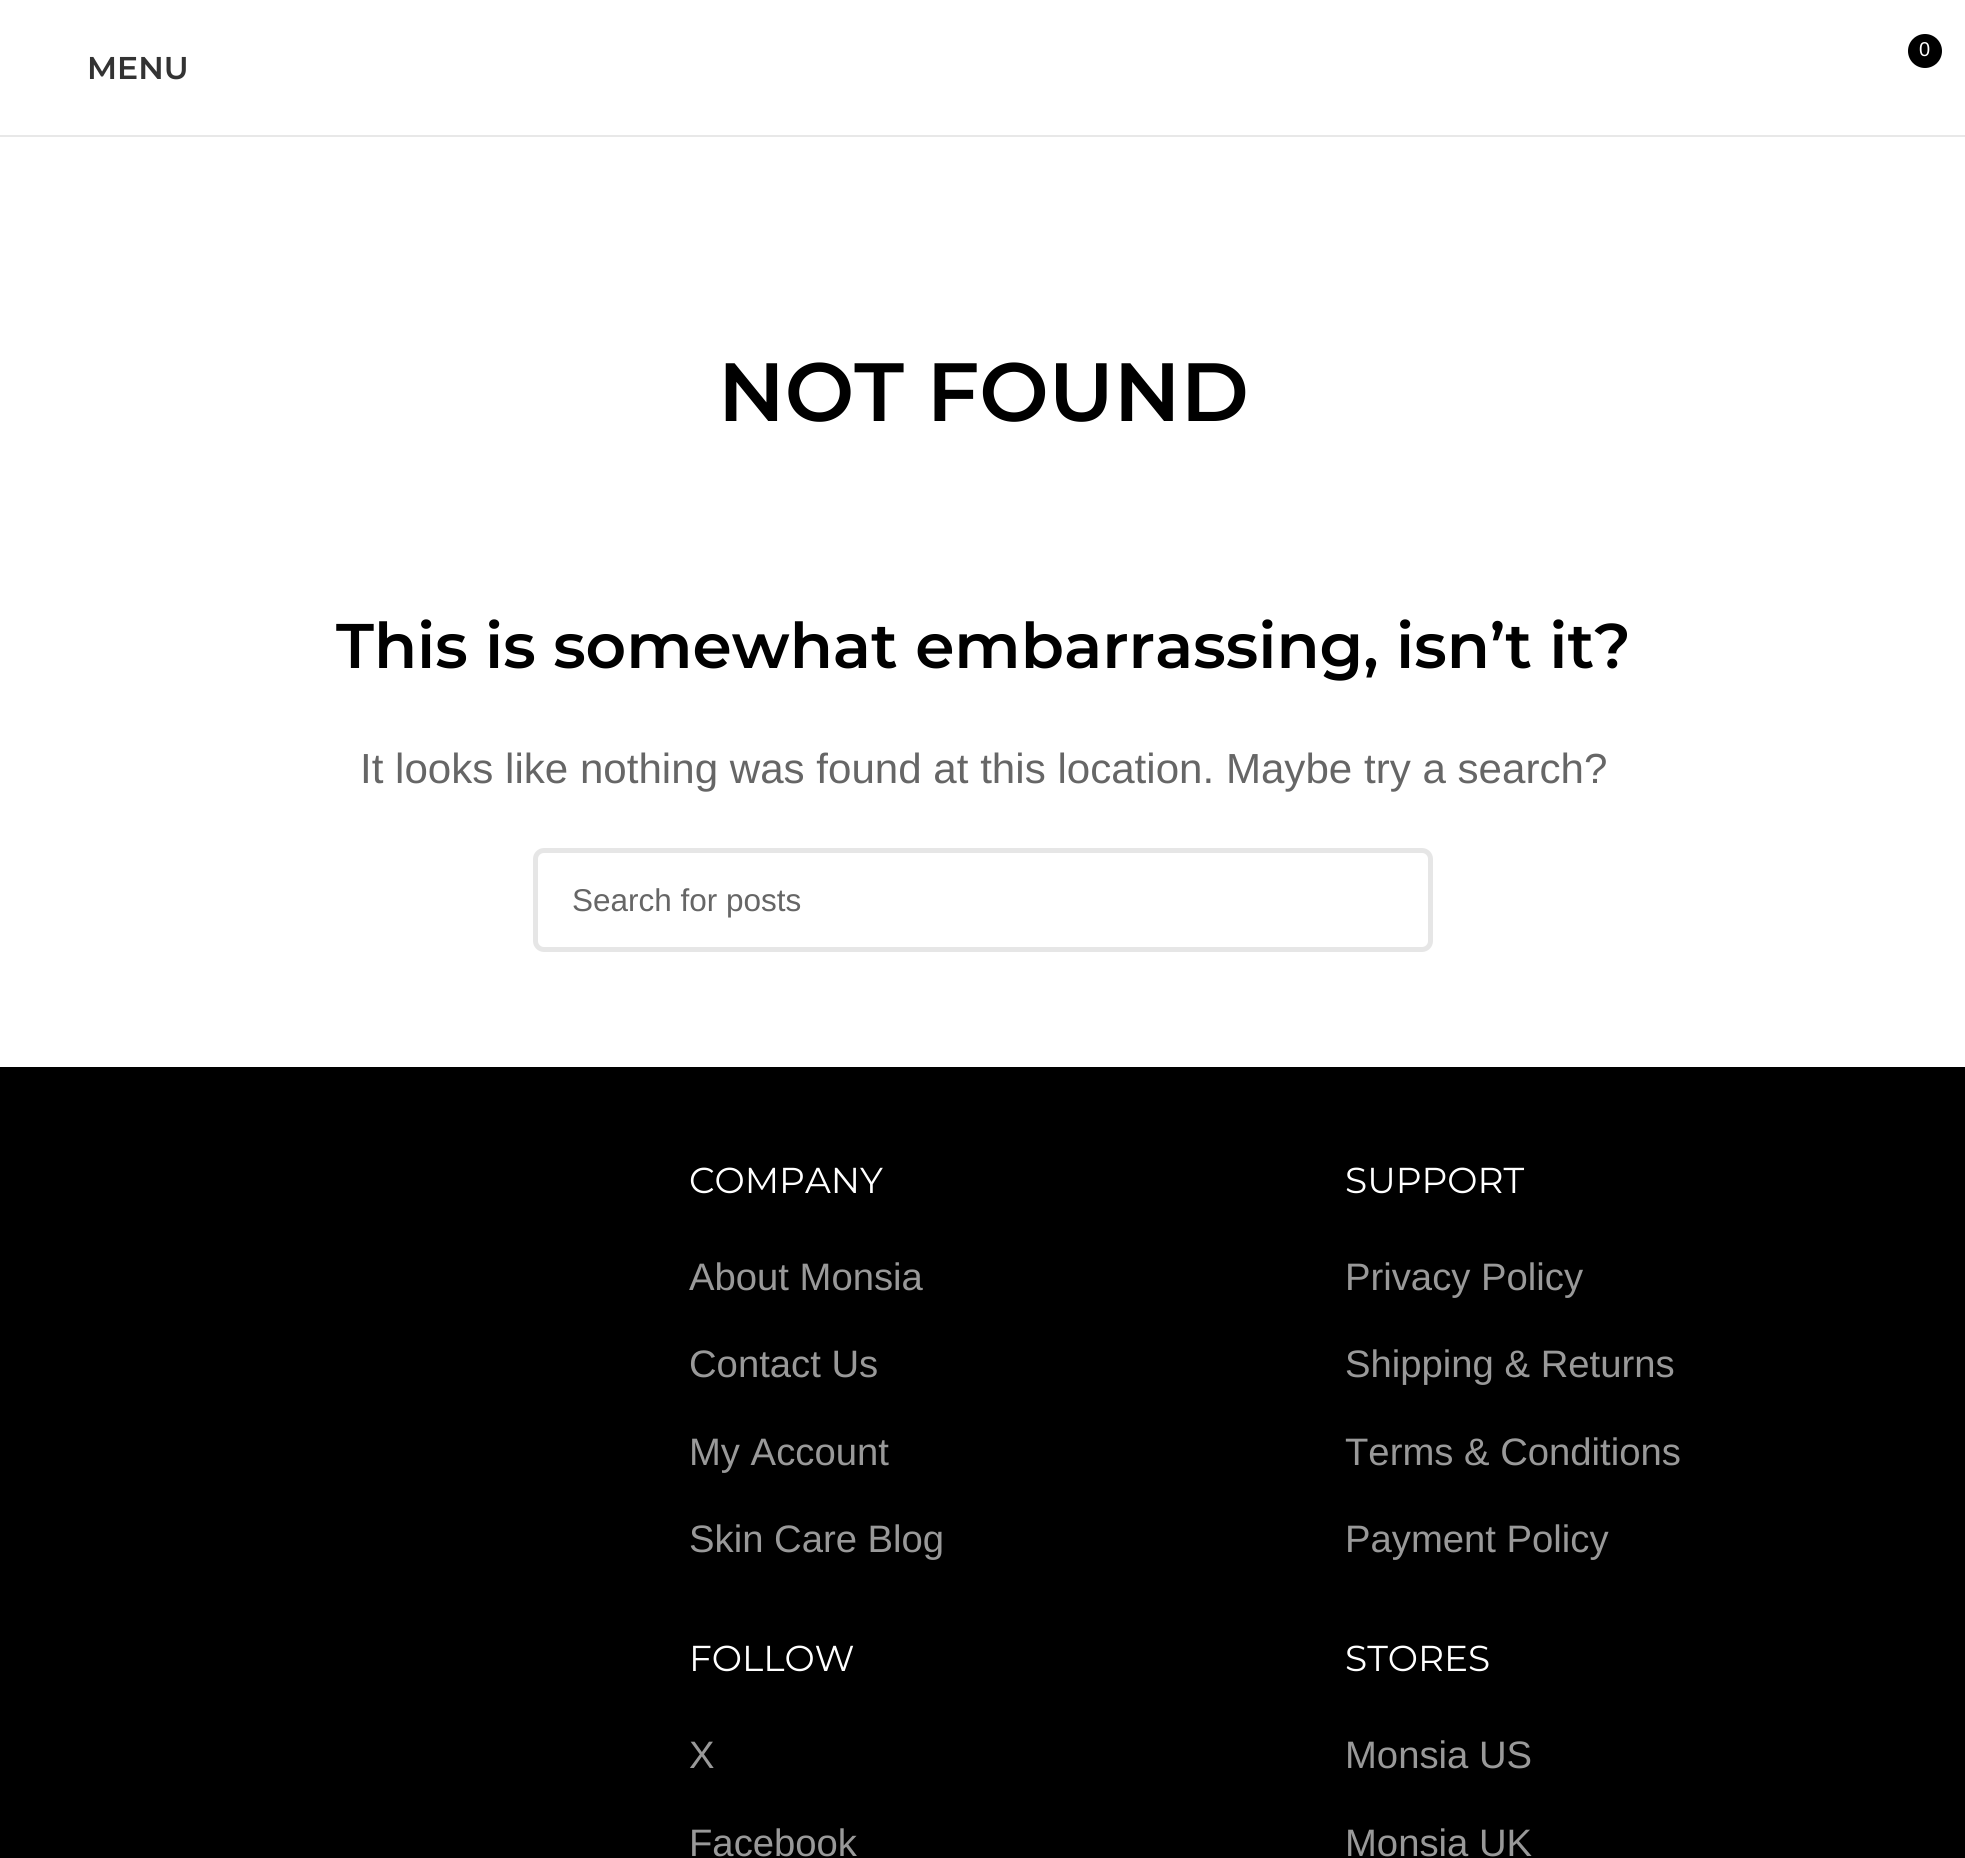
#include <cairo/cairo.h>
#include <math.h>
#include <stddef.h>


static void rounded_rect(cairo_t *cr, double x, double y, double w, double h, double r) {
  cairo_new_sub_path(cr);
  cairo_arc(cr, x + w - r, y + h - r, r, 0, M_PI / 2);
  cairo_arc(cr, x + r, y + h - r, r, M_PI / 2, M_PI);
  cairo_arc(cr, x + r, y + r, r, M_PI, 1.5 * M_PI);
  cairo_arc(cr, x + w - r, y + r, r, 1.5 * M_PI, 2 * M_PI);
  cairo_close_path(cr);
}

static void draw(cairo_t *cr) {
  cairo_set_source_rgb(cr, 1, 1, 1);
  cairo_paint(cr);
  cairo_set_source_rgb(cr, 232 / 255.0, 232 / 255.0, 232 / 255.0);
  cairo_rectangle(cr, 0, 135, 1965, 2);
  cairo_fill(cr);
  cairo_set_source_rgb(cr, 0, 0, 0);
  cairo_arc(cr, 1925, 51, 17, 0, 2 * M_PI);
  cairo_fill(cr);
  rounded_rect(cr, 535.5, 850.5, 895, 99, 8.5);
  cairo_set_source_rgb(cr, 230 / 255.0, 230 / 255.0, 230 / 255.0);
  cairo_set_line_width(cr, 5);
  cairo_stroke(cr);
  cairo_set_source_rgb(cr, 0, 0, 0);
  cairo_rectangle(cr, 0, 1067, 1965, 791);
  cairo_fill(cr);
  cairo_select_font_face(cr, "Liberation Sans", CAIRO_FONT_SLANT_NORMAL, CAIRO_FONT_WEIGHT_NORMAL);
  cairo_set_font_size(cr, 20);
  cairo_set_source_rgb(cr, 1, 1, 1);
  cairo_move_to(cr, 1919, 56);
  cairo_show_text(cr, "0");
  cairo_select_font_face(cr, "Montserrat SemiBold", CAIRO_FONT_SLANT_NORMAL, CAIRO_FONT_WEIGHT_NORMAL);
  cairo_set_font_size(cr, 31.5);
  cairo_set_source_rgb(cr, 51 / 255.0, 51 / 255.0, 51 / 255.0);
  cairo_move_to(cr, 87, 79);
  cairo_show_text(cr, "MENU");
  cairo_set_font_size(cr, 82.5);
  cairo_set_source_rgb(cr, 0, 0, 0);
  cairo_move_to(cr, 718, 421);
  cairo_show_text(cr, "NOT FOUND");
  cairo_set_font_size(cr, 63);
  cairo_move_to(cr, 336, 668);
  cairo_show_text(cr, "This is somewhat embarrassing, isn’t it?");
  cairo_select_font_face(cr, "Liberation Sans", CAIRO_FONT_SLANT_NORMAL, CAIRO_FONT_WEIGHT_NORMAL);
  cairo_set_font_size(cr, 42.1);
  cairo_set_source_rgb(cr, 102 / 255.0, 102 / 255.0, 102 / 255.0);
  cairo_move_to(cr, 360, 783);
  cairo_show_text(cr, "It looks like nothing was found at this location. Maybe try a search?");
  cairo_set_font_size(cr, 31.5);
  cairo_move_to(cr, 572, 911);
  cairo_show_text(cr, "Search for posts");
  cairo_select_font_face(cr, "Montserrat", CAIRO_FONT_SLANT_NORMAL, CAIRO_FONT_WEIGHT_NORMAL);
  cairo_set_font_size(cr, 36);
  cairo_set_source_rgb(cr, 1, 1, 1);
  cairo_move_to(cr, 689, 1193);
  cairo_show_text(cr, "COMPANY");
  cairo_select_font_face(cr, "Liberation Sans", CAIRO_FONT_SLANT_NORMAL, CAIRO_FONT_WEIGHT_NORMAL);
  cairo_set_font_size(cr, 38.25);
  cairo_set_source_rgb(cr, 153 / 255.0, 153 / 255.0, 153 / 255.0);
  cairo_move_to(cr, 689, 1290);
  cairo_show_text(cr, "About Monsia");
  cairo_move_to(cr, 689, 1377);
  cairo_show_text(cr, "Contact Us");
  cairo_move_to(cr, 689, 1465);
  cairo_show_text(cr, "My Account");
  cairo_move_to(cr, 689, 1552);
  cairo_show_text(cr, "Skin Care Blog");
  cairo_select_font_face(cr, "Montserrat", CAIRO_FONT_SLANT_NORMAL, CAIRO_FONT_WEIGHT_NORMAL);
  cairo_set_font_size(cr, 36);
  cairo_set_source_rgb(cr, 1, 1, 1);
  cairo_move_to(cr, 1345, 1193);
  cairo_show_text(cr, "SUPPORT");
  cairo_select_font_face(cr, "Liberation Sans", CAIRO_FONT_SLANT_NORMAL, CAIRO_FONT_WEIGHT_NORMAL);
  cairo_set_font_size(cr, 38.25);
  cairo_set_source_rgb(cr, 153 / 255.0, 153 / 255.0, 153 / 255.0);
  cairo_move_to(cr, 1345, 1290);
  cairo_show_text(cr, "Privacy Policy");
  cairo_move_to(cr, 1345, 1377);
  cairo_show_text(cr, "Shipping & Returns");
  cairo_move_to(cr, 1345, 1465);
  cairo_show_text(cr, "Terms & Conditions");
  cairo_move_to(cr, 1345, 1552);
  cairo_show_text(cr, "Payment Policy");
  cairo_select_font_face(cr, "Montserrat", CAIRO_FONT_SLANT_NORMAL, CAIRO_FONT_WEIGHT_NORMAL);
  cairo_set_font_size(cr, 36);
  cairo_set_source_rgb(cr, 1, 1, 1);
  cairo_move_to(cr, 689, 1671);
  cairo_show_text(cr, "FOLLOW");
  cairo_select_font_face(cr, "Liberation Sans", CAIRO_FONT_SLANT_NORMAL, CAIRO_FONT_WEIGHT_NORMAL);
  cairo_set_font_size(cr, 38.25);
  cairo_set_source_rgb(cr, 153 / 255.0, 153 / 255.0, 153 / 255.0);
  cairo_move_to(cr, 689, 1768);
  cairo_show_text(cr, "X");
  cairo_move_to(cr, 689, 1856);
  cairo_show_text(cr, "Facebook");
  cairo_select_font_face(cr, "Montserrat", CAIRO_FONT_SLANT_NORMAL, CAIRO_FONT_WEIGHT_NORMAL);
  cairo_set_font_size(cr, 36);
  cairo_set_source_rgb(cr, 1, 1, 1);
  cairo_move_to(cr, 1345, 1671);
  cairo_show_text(cr, "STORES");
  cairo_select_font_face(cr, "Liberation Sans", CAIRO_FONT_SLANT_NORMAL, CAIRO_FONT_WEIGHT_NORMAL);
  cairo_set_font_size(cr, 38.25);
  cairo_set_source_rgb(cr, 153 / 255.0, 153 / 255.0, 153 / 255.0);
  cairo_move_to(cr, 1345, 1768);
  cairo_show_text(cr, "Monsia US");
  cairo_move_to(cr, 1345, 1856);
  cairo_show_text(cr, "Monsia UK");
}

int main(void) {
  cairo_surface_t *surface = cairo_image_surface_create(CAIRO_FORMAT_RGB24, 1965, 1858);
  cairo_t *cr = cairo_create(surface);
  cairo_font_options_t *options = cairo_font_options_create();
  cairo_font_options_set_hint_metrics(options, CAIRO_HINT_METRICS_OFF);
  cairo_font_options_set_hint_style(options, CAIRO_HINT_STYLE_NONE);
  cairo_set_font_options(cr, options);
  cairo_set_miter_limit(cr, 4);
  draw(cr);
  cairo_surface_write_to_png(surface, "out.png");
  cairo_font_options_destroy(options);
  cairo_destroy(cr);
  cairo_surface_destroy(surface);
  return 0;
}
